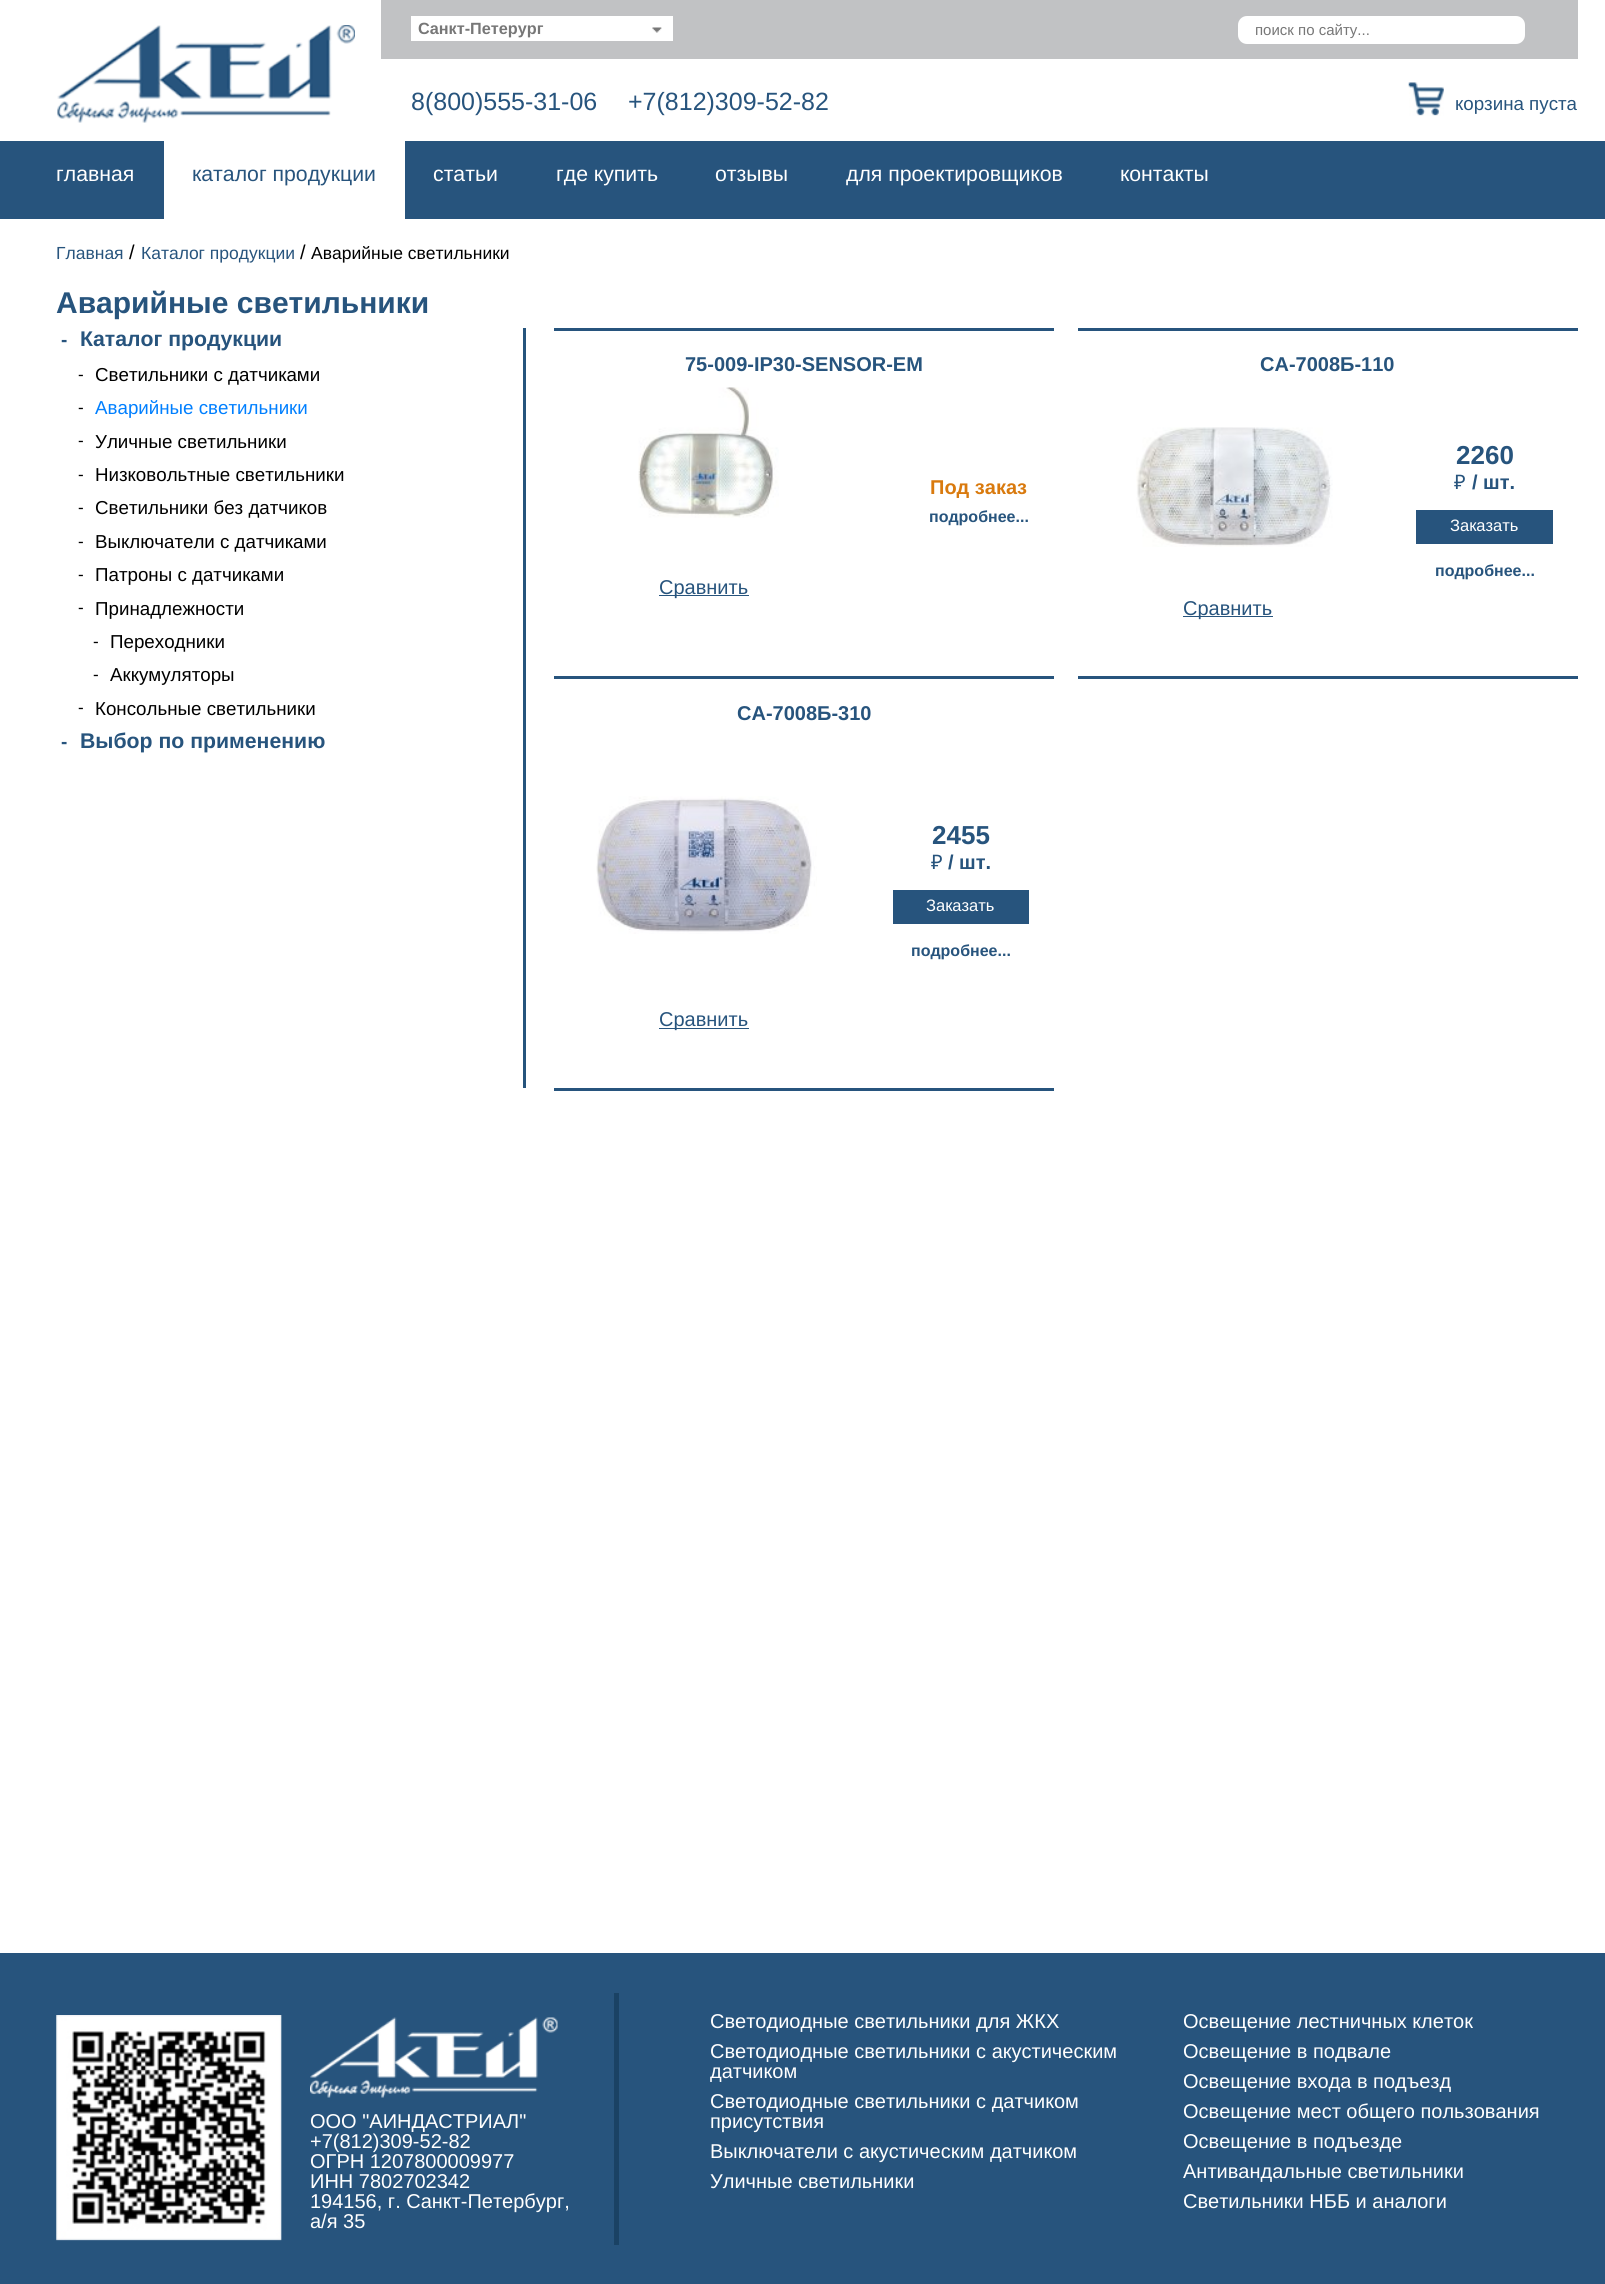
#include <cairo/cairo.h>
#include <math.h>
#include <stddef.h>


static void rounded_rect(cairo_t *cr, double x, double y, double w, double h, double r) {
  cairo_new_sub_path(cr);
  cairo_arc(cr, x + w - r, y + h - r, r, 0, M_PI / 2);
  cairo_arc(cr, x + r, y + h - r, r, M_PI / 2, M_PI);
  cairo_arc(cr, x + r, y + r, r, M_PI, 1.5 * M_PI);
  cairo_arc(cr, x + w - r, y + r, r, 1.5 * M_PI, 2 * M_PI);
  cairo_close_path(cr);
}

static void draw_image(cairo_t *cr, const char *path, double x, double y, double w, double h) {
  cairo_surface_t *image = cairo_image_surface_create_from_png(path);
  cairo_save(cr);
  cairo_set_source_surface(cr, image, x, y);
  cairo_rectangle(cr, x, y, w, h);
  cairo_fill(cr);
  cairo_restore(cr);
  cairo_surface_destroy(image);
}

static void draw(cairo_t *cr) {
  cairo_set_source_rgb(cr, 1, 1, 1);
  cairo_paint(cr);
  draw_image(cr, "images/1.png", 57, 25, 298, 98);
  cairo_set_source_rgb(cr, 193 / 255.0, 194 / 255.0, 196 / 255.0);
  cairo_rectangle(cr, 381, 0, 1197, 59);
  cairo_fill(cr);
  cairo_set_source_rgb(cr, 1, 1, 1);
  cairo_rectangle(cr, 411, 16, 262, 25);
  cairo_fill(cr);
  draw_image(cr, "images/2.png", 652, 27, 10, 6);
  rounded_rect(cr, 1238, 16, 287, 28, 9);
  cairo_fill(cr);
  draw_image(cr, "images/3.png", 1408, 82, 36, 34);
  cairo_set_source_rgb(cr, 39 / 255.0, 84 / 255.0, 125 / 255.0);
  cairo_rectangle(cr, 0, 141, 1605, 78);
  cairo_fill(cr);
  cairo_set_source_rgb(cr, 1, 1, 1);
  cairo_rectangle(cr, 164, 141, 241, 78);
  cairo_fill(cr);
  cairo_set_source_rgb(cr, 38 / 255.0, 84 / 255.0, 124 / 255.0);
  cairo_rectangle(cr, 523, 328, 3, 760);
  cairo_fill(cr);
  cairo_set_source_rgb(cr, 39 / 255.0, 84 / 255.0, 125 / 255.0);
  cairo_rectangle(cr, 554, 328, 500, 3);
  cairo_fill(cr);
  cairo_rectangle(cr, 554, 676, 500, 3);
  cairo_fill(cr);
  draw_image(cr, "images/4.png", 638, 387, 141, 131);
  cairo_rectangle(cr, 659, 595, 90, 1);
  cairo_fill(cr);
  cairo_rectangle(cr, 1078, 328, 500, 3);
  cairo_fill(cr);
  cairo_rectangle(cr, 1078, 676, 500, 3);
  cairo_fill(cr);
  cairo_rectangle(cr, 1416, 510, 137, 34);
  cairo_fill(cr);
  draw_image(cr, "images/5.png", 1136, 427, 197, 120);
  cairo_rectangle(cr, 1183, 616, 90, 1);
  cairo_fill(cr);
  cairo_rectangle(cr, 554, 1088, 500, 3);
  cairo_fill(cr);
  cairo_rectangle(cr, 893, 890, 136, 34);
  cairo_fill(cr);
  draw_image(cr, "images/6.png", 596, 796, 221, 138);
  cairo_rectangle(cr, 659, 1028, 90, 1);
  cairo_fill(cr);
  cairo_rectangle(cr, 0, 1953, 1605, 331);
  cairo_fill(cr);
  draw_image(cr, "images/7.png", 56, 2015, 226, 226);
  cairo_set_source_rgb(cr, 26 / 255.0, 66 / 255.0, 100 / 255.0);
  cairo_rectangle(cr, 614, 1993, 5, 252);
  cairo_fill(cr);
  draw_image(cr, "images/8.png", 310, 2017, 248, 81);
  cairo_select_font_face(cr, "Liberation Sans", CAIRO_FONT_SLANT_NORMAL, CAIRO_FONT_WEIGHT_BOLD);
  cairo_set_font_size(cr, 16.25);
  cairo_set_source_rgb(cr, 119 / 255.0, 119 / 255.0, 119 / 255.0);
  cairo_move_to(cr, 418, 34);
  cairo_show_text(cr, "Санкт-Петерург");
  cairo_select_font_face(cr, "Liberation Sans", CAIRO_FONT_SLANT_NORMAL, CAIRO_FONT_WEIGHT_NORMAL);
  cairo_set_font_size(cr, 15);
  cairo_move_to(cr, 1255, 35);
  cairo_show_text(cr, "поиск по сайту...");
  cairo_set_font_size(cr, 25);
  cairo_set_source_rgb(cr, 39 / 255.0, 84 / 255.0, 125 / 255.0);
  cairo_move_to(cr, 411, 110);
  cairo_show_text(cr, "8(800)555-31-06");
  cairo_move_to(cr, 628, 110);
  cairo_show_text(cr, "+7(812)309-52-82");
  cairo_set_font_size(cr, 18.75);
  cairo_move_to(cr, 1455, 110);
  cairo_show_text(cr, "корзина пуста");
  cairo_set_font_size(cr, 21.25);
  cairo_set_source_rgb(cr, 1, 1, 1);
  cairo_move_to(cr, 56, 181);
  cairo_show_text(cr, "главная");
  cairo_set_source_rgb(cr, 39 / 255.0, 84 / 255.0, 125 / 255.0);
  cairo_move_to(cr, 192, 181);
  cairo_show_text(cr, "каталог продукции");
  cairo_set_source_rgb(cr, 1, 1, 1);
  cairo_move_to(cr, 433, 181);
  cairo_show_text(cr, "статьи");
  cairo_move_to(cr, 556, 181);
  cairo_show_text(cr, "где купить");
  cairo_move_to(cr, 715, 181);
  cairo_show_text(cr, "отзывы");
  cairo_move_to(cr, 846, 181);
  cairo_show_text(cr, "для проектировщиков");
  cairo_move_to(cr, 1120, 181);
  cairo_show_text(cr, "контакты");
  cairo_set_font_size(cr, 17.5);
  cairo_set_source_rgb(cr, 39 / 255.0, 84 / 255.0, 125 / 255.0);
  cairo_move_to(cr, 56, 259);
  cairo_show_text(cr, "Главная");
  cairo_set_font_size(cr, 20);
  cairo_set_source_rgb(cr, 0, 0, 0);
  cairo_move_to(cr, 129, 259);
  cairo_show_text(cr, "/");
  cairo_set_font_size(cr, 17.5);
  cairo_set_source_rgb(cr, 39 / 255.0, 84 / 255.0, 125 / 255.0);
  cairo_move_to(cr, 141, 259);
  cairo_show_text(cr, "Каталог продукции");
  cairo_set_font_size(cr, 20);
  cairo_set_source_rgb(cr, 0, 0, 0);
  cairo_move_to(cr, 300, 259);
  cairo_show_text(cr, "/");
  cairo_set_font_size(cr, 17.5);
  cairo_move_to(cr, 311, 259);
  cairo_show_text(cr, "Аварийные светильники");
  cairo_select_font_face(cr, "Liberation Sans", CAIRO_FONT_SLANT_NORMAL, CAIRO_FONT_WEIGHT_BOLD);
  cairo_set_font_size(cr, 30);
  cairo_set_source_rgb(cr, 39 / 255.0, 84 / 255.0, 125 / 255.0);
  cairo_move_to(cr, 56, 313);
  cairo_show_text(cr, "Аварийные светильники");
  cairo_set_font_size(cr, 19);
  cairo_move_to(cr, 61, 346);
  cairo_show_text(cr, "-");
  cairo_set_font_size(cr, 21.25);
  cairo_move_to(cr, 80, 346);
  cairo_show_text(cr, "Каталог продукции");
  cairo_select_font_face(cr, "Liberation Sans", CAIRO_FONT_SLANT_NORMAL, CAIRO_FONT_WEIGHT_NORMAL);
  cairo_set_font_size(cr, 17);
  cairo_set_source_rgb(cr, 0, 0, 0);
  cairo_move_to(cr, 78, 380);
  cairo_show_text(cr, "-");
  cairo_set_font_size(cr, 18.75);
  cairo_move_to(cr, 95, 381);
  cairo_show_text(cr, "Светильники с датчиками");
  cairo_set_font_size(cr, 17);
  cairo_move_to(cr, 78, 413);
  cairo_show_text(cr, "-");
  cairo_set_font_size(cr, 18.75);
  cairo_set_source_rgb(cr, 0, 127 / 255.0, 1);
  cairo_move_to(cr, 95, 414);
  cairo_show_text(cr, "Аварийные светильники");
  cairo_set_font_size(cr, 17);
  cairo_set_source_rgb(cr, 0, 0, 0);
  cairo_move_to(cr, 78, 446);
  cairo_show_text(cr, "-");
  cairo_set_font_size(cr, 18.75);
  cairo_move_to(cr, 95, 448);
  cairo_show_text(cr, "Уличные светильники");
  cairo_set_font_size(cr, 17);
  cairo_move_to(cr, 78, 480);
  cairo_show_text(cr, "-");
  cairo_set_font_size(cr, 18.75);
  cairo_move_to(cr, 95, 481);
  cairo_show_text(cr, "Низковольтные светильники");
  cairo_set_font_size(cr, 17);
  cairo_move_to(cr, 78, 513);
  cairo_show_text(cr, "-");
  cairo_set_font_size(cr, 18.75);
  cairo_move_to(cr, 95, 514);
  cairo_show_text(cr, "Светильники без датчиков");
  cairo_set_font_size(cr, 17);
  cairo_move_to(cr, 78, 547);
  cairo_show_text(cr, "-");
  cairo_set_font_size(cr, 18.75);
  cairo_move_to(cr, 95, 548);
  cairo_show_text(cr, "Выключатели с датчиками");
  cairo_set_font_size(cr, 17);
  cairo_move_to(cr, 78, 580);
  cairo_show_text(cr, "-");
  cairo_set_font_size(cr, 18.75);
  cairo_move_to(cr, 95, 581);
  cairo_show_text(cr, "Патроны с датчиками");
  cairo_set_font_size(cr, 17);
  cairo_move_to(cr, 78, 613);
  cairo_show_text(cr, "-");
  cairo_set_font_size(cr, 18.75);
  cairo_move_to(cr, 95, 615);
  cairo_show_text(cr, "Принадлежности");
  cairo_set_font_size(cr, 17);
  cairo_move_to(cr, 93, 647);
  cairo_show_text(cr, "-");
  cairo_set_font_size(cr, 18.75);
  cairo_move_to(cr, 110, 648);
  cairo_show_text(cr, "Переходники");
  cairo_set_font_size(cr, 17);
  cairo_move_to(cr, 93, 680);
  cairo_show_text(cr, "-");
  cairo_set_font_size(cr, 18.75);
  cairo_move_to(cr, 110, 681);
  cairo_show_text(cr, "Аккумуляторы");
  cairo_set_font_size(cr, 17);
  cairo_move_to(cr, 78, 713);
  cairo_show_text(cr, "-");
  cairo_set_font_size(cr, 18.75);
  cairo_move_to(cr, 95, 715);
  cairo_show_text(cr, "Консольные светильники");
  cairo_select_font_face(cr, "Liberation Sans", CAIRO_FONT_SLANT_NORMAL, CAIRO_FONT_WEIGHT_BOLD);
  cairo_set_font_size(cr, 19);
  cairo_set_source_rgb(cr, 39 / 255.0, 84 / 255.0, 125 / 255.0);
  cairo_move_to(cr, 61, 748);
  cairo_show_text(cr, "-");
  cairo_set_font_size(cr, 21.25);
  cairo_move_to(cr, 80, 748);
  cairo_show_text(cr, "Выбор по применению");
  cairo_set_font_size(cr, 20);
  cairo_move_to(cr, 685, 371);
  cairo_show_text(cr, "75-009-IP30-SENSOR-EM");
  cairo_set_source_rgb(cr, 217 / 255.0, 122 / 255.0, 14 / 255.0);
  cairo_move_to(cr, 930, 494);
  cairo_show_text(cr, "Под заказ");
  cairo_set_font_size(cr, 16);
  cairo_set_source_rgb(cr, 39 / 255.0, 84 / 255.0, 125 / 255.0);
  cairo_move_to(cr, 929, 522);
  cairo_show_text(cr, "подробнее...");
  cairo_select_font_face(cr, "Liberation Sans", CAIRO_FONT_SLANT_NORMAL, CAIRO_FONT_WEIGHT_NORMAL);
  cairo_set_font_size(cr, 20);
  cairo_move_to(cr, 659, 594);
  cairo_show_text(cr, "Cравнить");
  cairo_select_font_face(cr, "Liberation Sans", CAIRO_FONT_SLANT_NORMAL, CAIRO_FONT_WEIGHT_BOLD);
  cairo_move_to(cr, 1260, 371);
  cairo_show_text(cr, "СА-7008Б-110");
  cairo_set_font_size(cr, 26);
  cairo_move_to(cr, 1456, 464);
  cairo_show_text(cr, "2260");
  cairo_select_font_face(cr, "Noto Sans", CAIRO_FONT_SLANT_NORMAL, CAIRO_FONT_WEIGHT_NORMAL);
  cairo_set_font_size(cr, 20);
  cairo_move_to(cr, 1454, 489);
  cairo_show_text(cr, "₽");
  cairo_select_font_face(cr, "Liberation Sans", CAIRO_FONT_SLANT_NORMAL, CAIRO_FONT_WEIGHT_BOLD);
  cairo_move_to(cr, 1472, 489);
  cairo_show_text(cr, "/ шт.");
  cairo_select_font_face(cr, "Liberation Sans", CAIRO_FONT_SLANT_NORMAL, CAIRO_FONT_WEIGHT_NORMAL);
  cairo_set_font_size(cr, 16.5);
  cairo_set_source_rgb(cr, 1, 1, 1);
  cairo_move_to(cr, 1450, 531);
  cairo_show_text(cr, "Заказать");
  cairo_select_font_face(cr, "Liberation Sans", CAIRO_FONT_SLANT_NORMAL, CAIRO_FONT_WEIGHT_BOLD);
  cairo_set_font_size(cr, 16);
  cairo_set_source_rgb(cr, 39 / 255.0, 84 / 255.0, 125 / 255.0);
  cairo_move_to(cr, 1435, 576);
  cairo_show_text(cr, "подробнее...");
  cairo_select_font_face(cr, "Liberation Sans", CAIRO_FONT_SLANT_NORMAL, CAIRO_FONT_WEIGHT_NORMAL);
  cairo_set_font_size(cr, 20);
  cairo_move_to(cr, 1183, 615);
  cairo_show_text(cr, "Cравнить");
  cairo_select_font_face(cr, "Liberation Sans", CAIRO_FONT_SLANT_NORMAL, CAIRO_FONT_WEIGHT_BOLD);
  cairo_move_to(cr, 737, 720);
  cairo_show_text(cr, "СА-7008Б-310");
  cairo_set_font_size(cr, 26);
  cairo_move_to(cr, 932, 844);
  cairo_show_text(cr, "2455");
  cairo_select_font_face(cr, "Noto Sans", CAIRO_FONT_SLANT_NORMAL, CAIRO_FONT_WEIGHT_NORMAL);
  cairo_set_font_size(cr, 20);
  cairo_move_to(cr, 931, 869);
  cairo_show_text(cr, "₽");
  cairo_select_font_face(cr, "Liberation Sans", CAIRO_FONT_SLANT_NORMAL, CAIRO_FONT_WEIGHT_BOLD);
  cairo_move_to(cr, 948, 869);
  cairo_show_text(cr, "/ шт.");
  cairo_select_font_face(cr, "Liberation Sans", CAIRO_FONT_SLANT_NORMAL, CAIRO_FONT_WEIGHT_NORMAL);
  cairo_set_font_size(cr, 16.5);
  cairo_set_source_rgb(cr, 1, 1, 1);
  cairo_move_to(cr, 926, 911);
  cairo_show_text(cr, "Заказать");
  cairo_select_font_face(cr, "Liberation Sans", CAIRO_FONT_SLANT_NORMAL, CAIRO_FONT_WEIGHT_BOLD);
  cairo_set_font_size(cr, 16);
  cairo_set_source_rgb(cr, 39 / 255.0, 84 / 255.0, 125 / 255.0);
  cairo_move_to(cr, 911, 956);
  cairo_show_text(cr, "подробнее...");
  cairo_select_font_face(cr, "Liberation Sans", CAIRO_FONT_SLANT_NORMAL, CAIRO_FONT_WEIGHT_NORMAL);
  cairo_set_font_size(cr, 20);
  cairo_move_to(cr, 659, 1026);
  cairo_show_text(cr, "Cравнить");
  cairo_set_source_rgb(cr, 1, 1, 1);
  cairo_move_to(cr, 310, 2128);
  cairo_show_text(cr, "ООО \"АИНДАСТРИАЛ\"");
  cairo_move_to(cr, 310, 2148);
  cairo_show_text(cr, "+7(812)309-52-82");
  cairo_move_to(cr, 310, 2168);
  cairo_show_text(cr, "ОГРН 1207800009977");
  cairo_move_to(cr, 310, 2188);
  cairo_show_text(cr, "ИНН 7802702342");
  cairo_move_to(cr, 310, 2208);
  cairo_show_text(cr, "194156, г. Санкт-Петербург,");
  cairo_move_to(cr, 310, 2228);
  cairo_show_text(cr, "а/я 35");
  cairo_move_to(cr, 710, 2028);
  cairo_show_text(cr, "Светодиодные светильники для ЖКХ");
  cairo_move_to(cr, 710, 2058);
  cairo_show_text(cr, "Светодиодные светильники с акустическим");
  cairo_move_to(cr, 710, 2078);
  cairo_show_text(cr, "датчиком");
  cairo_move_to(cr, 710, 2108);
  cairo_show_text(cr, "Светодиодные светильники с датчиком");
  cairo_move_to(cr, 710, 2128);
  cairo_show_text(cr, "присутствия");
  cairo_move_to(cr, 710, 2158);
  cairo_show_text(cr, "Выключатели с акустическим датчиком");
  cairo_move_to(cr, 710, 2188);
  cairo_show_text(cr, "Уличные светильники");
  cairo_move_to(cr, 1183, 2028);
  cairo_show_text(cr, "Освещение лестничных клеток");
  cairo_move_to(cr, 1183, 2058);
  cairo_show_text(cr, "Освещение в подвале");
  cairo_move_to(cr, 1183, 2088);
  cairo_show_text(cr, "Освещение входа в подъезд");
  cairo_move_to(cr, 1183, 2118);
  cairo_show_text(cr, "Освещение мест общего пользования");
  cairo_move_to(cr, 1183, 2148);
  cairo_show_text(cr, "Освещение в подъезде");
  cairo_move_to(cr, 1183, 2178);
  cairo_show_text(cr, "Антивандальные светильники");
  cairo_move_to(cr, 1183, 2208);
  cairo_show_text(cr, "Светильники НББ и аналоги");
}

int main(void) {
  cairo_surface_t *surface = cairo_image_surface_create(CAIRO_FORMAT_RGB24, 1605, 2284);
  cairo_t *cr = cairo_create(surface);
  cairo_font_options_t *options = cairo_font_options_create();
  cairo_font_options_set_hint_metrics(options, CAIRO_HINT_METRICS_OFF);
  cairo_font_options_set_hint_style(options, CAIRO_HINT_STYLE_NONE);
  cairo_set_font_options(cr, options);
  cairo_set_miter_limit(cr, 4);
  draw(cr);
  cairo_surface_write_to_png(surface, "out.png");
  cairo_font_options_destroy(options);
  cairo_destroy(cr);
  cairo_surface_destroy(surface);
  return 0;
}
